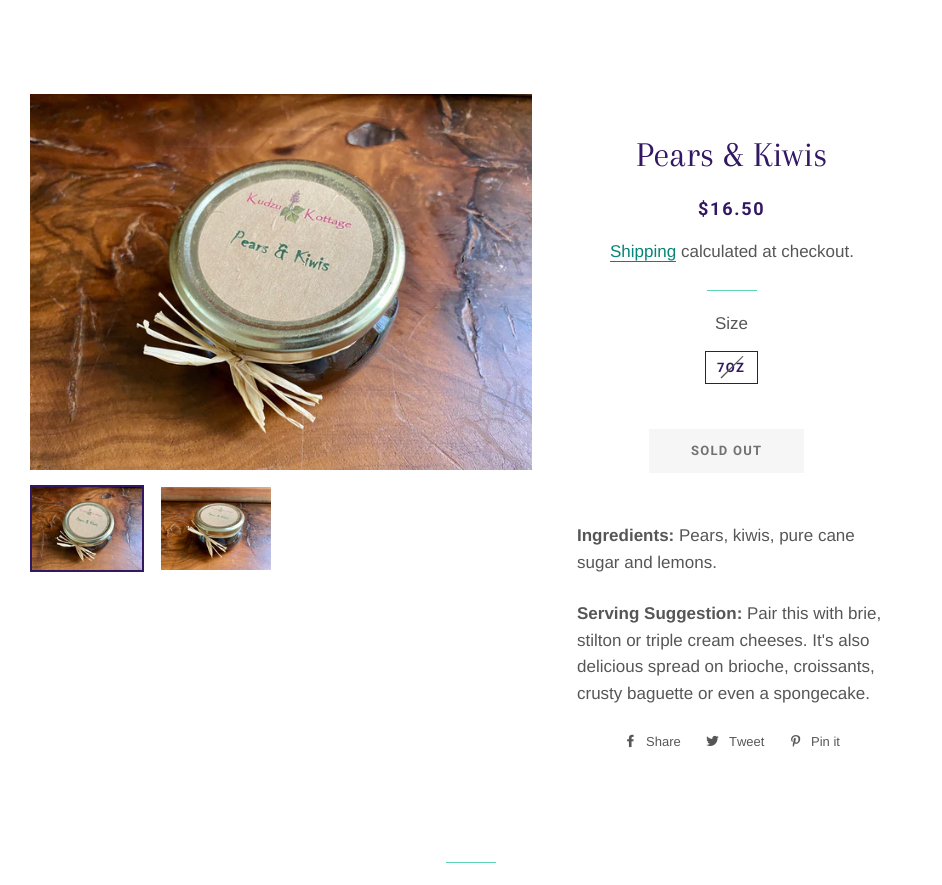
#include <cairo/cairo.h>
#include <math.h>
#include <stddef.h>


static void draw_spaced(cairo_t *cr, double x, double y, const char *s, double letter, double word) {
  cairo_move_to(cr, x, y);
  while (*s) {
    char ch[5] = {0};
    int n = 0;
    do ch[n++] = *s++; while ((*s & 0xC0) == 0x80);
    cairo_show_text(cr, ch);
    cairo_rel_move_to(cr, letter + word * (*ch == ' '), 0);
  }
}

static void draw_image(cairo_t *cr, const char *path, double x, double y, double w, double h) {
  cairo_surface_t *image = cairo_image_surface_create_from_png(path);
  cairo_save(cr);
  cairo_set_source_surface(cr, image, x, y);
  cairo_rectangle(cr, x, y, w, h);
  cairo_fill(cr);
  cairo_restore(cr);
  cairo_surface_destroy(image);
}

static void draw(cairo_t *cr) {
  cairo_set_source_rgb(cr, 1, 1, 1);
  cairo_paint(cr);
  draw_image(cr, "images/1.png", 30, 94, 502, 376);
  cairo_rectangle(cr, 31, 486, 112, 85);
  cairo_set_source_rgb(cr, 50 / 255.0, 24 / 255.0, 99 / 255.0);
  cairo_stroke(cr);
  draw_image(cr, "images/2.png", 32, 487, 110, 83);
  draw_image(cr, "images/3.png", 161, 487, 110, 83);
  cairo_set_source_rgb(cr, 5 / 255.0, 134 / 255.0, 119 / 255.0);
  cairo_rectangle(cr, 610, 261, 66, 1);
  cairo_fill(cr);
  cairo_set_source_rgb(cr, 93 / 255.0, 210 / 255.0, 180 / 255.0);
  cairo_rectangle(cr, 707, 290, 50, 1);
  cairo_fill(cr);
  cairo_rectangle(cr, 705.5, 351.5, 52, 32);
  cairo_set_source_rgb(cr, 50 / 255.0, 24 / 255.0, 99 / 255.0);
  cairo_set_line_width(cr, 1);
  cairo_stroke(cr);
  cairo_set_source_rgb(cr, 246 / 255.0, 246 / 255.0, 246 / 255.0);
  cairo_rectangle(cr, 649, 429, 155, 44);
  cairo_fill(cr);
  draw_image(cr, "images/4.png", 627, 734, 7, 14);
  draw_image(cr, "images/5.png", 706, 735, 13, 11);
  draw_image(cr, "images/6.png", 791, 735, 10, 12);
  cairo_set_source_rgb(cr, 93 / 255.0, 210 / 255.0, 180 / 255.0);
  cairo_rectangle(cr, 446, 862, 50, 1);
  cairo_fill(cr);
  cairo_select_font_face(cr, "Arapey", CAIRO_FONT_SLANT_NORMAL, CAIRO_FONT_WEIGHT_NORMAL);
  cairo_set_font_size(cr, 36);
  cairo_set_source_rgb(cr, 50 / 255.0, 24 / 255.0, 99 / 255.0);
  cairo_move_to(cr, 636, 166);
  cairo_show_text(cr, "Pears & Kiwis");
  cairo_select_font_face(cr, "Roboto", CAIRO_FONT_SLANT_NORMAL, CAIRO_FONT_WEIGHT_BOLD);
  cairo_set_font_size(cr, 18);
  draw_spaced(cr, 698, 215, "$16.50", 1.75, 0);
  cairo_select_font_face(cr, "Liberation Sans", CAIRO_FONT_SLANT_NORMAL, CAIRO_FONT_WEIGHT_NORMAL);
  cairo_set_font_size(cr, 17);
  cairo_set_source_rgb(cr, 5 / 255.0, 134 / 255.0, 119 / 255.0);
  cairo_move_to(cr, 610, 257);
  cairo_show_text(cr, "Shipping");
  cairo_set_source_rgb(cr, 86 / 255.0, 86 / 255.0, 86 / 255.0);
  cairo_move_to(cr, 681, 257);
  cairo_show_text(cr, "calculated at checkout.");
  cairo_move_to(cr, 715, 329);
  cairo_show_text(cr, "Size");
  cairo_select_font_face(cr, "Roboto", CAIRO_FONT_SLANT_NORMAL, CAIRO_FONT_WEIGHT_BOLD);
  cairo_set_font_size(cr, 13);
  cairo_set_source_rgb(cr, 50 / 255.0, 24 / 255.0, 99 / 255.0);
  draw_spaced(cr, 717, 372, "7OZ", 1.25, 0);
  cairo_set_source_rgb(cr, 86 / 255.0, 86 / 255.0, 86 / 255.0);
  cairo_new_path(cr);
  cairo_move_to(cr, 742.5, 356);
  cairo_line_to(cr, 743.5, 356.5);
  cairo_line_to(cr, 721.5, 378.5);
  cairo_line_to(cr, 720.5, 377.5);
  cairo_close_path(cr);
  cairo_fill(cr);
  cairo_set_source_rgb(cr, 113 / 255.0, 113 / 255.0, 113 / 255.0);
  draw_spaced(cr, 691, 455, "SOLD OUT", 1.25, 0);
  cairo_select_font_face(cr, "Liberation Sans", CAIRO_FONT_SLANT_NORMAL, CAIRO_FONT_WEIGHT_BOLD);
  cairo_set_font_size(cr, 17);
  cairo_set_source_rgb(cr, 86 / 255.0, 86 / 255.0, 86 / 255.0);
  cairo_move_to(cr, 577, 541);
  cairo_show_text(cr, "Ingredients:");
  cairo_select_font_face(cr, "Liberation Sans", CAIRO_FONT_SLANT_NORMAL, CAIRO_FONT_WEIGHT_NORMAL);
  cairo_move_to(cr, 679, 541);
  cairo_show_text(cr, "Pears, kiwis, pure cane");
  cairo_move_to(cr, 577, 568);
  cairo_show_text(cr, "sugar and lemons.");
  cairo_select_font_face(cr, "Liberation Sans", CAIRO_FONT_SLANT_NORMAL, CAIRO_FONT_WEIGHT_BOLD);
  cairo_move_to(cr, 577, 619);
  cairo_show_text(cr, "Serving Suggestion:");
  cairo_select_font_face(cr, "Liberation Sans", CAIRO_FONT_SLANT_NORMAL, CAIRO_FONT_WEIGHT_NORMAL);
  cairo_move_to(cr, 747, 619);
  cairo_show_text(cr, "Pair this with brie,");
  cairo_move_to(cr, 577, 646);
  cairo_show_text(cr, "stilton or triple cream cheeses. It's also");
  cairo_move_to(cr, 577, 672);
  cairo_show_text(cr, "delicious spread on brioche, croissants,");
  cairo_move_to(cr, 577, 699);
  cairo_show_text(cr, "crusty baguette or even a spongecake.");
  cairo_set_font_size(cr, 13);
  cairo_move_to(cr, 646, 746);
  cairo_show_text(cr, "Share");
  cairo_move_to(cr, 729, 746);
  cairo_show_text(cr, "Tweet");
  cairo_move_to(cr, 811, 746);
  cairo_show_text(cr, "Pin it");
}

int main(void) {
  cairo_surface_t *surface = cairo_image_surface_create(CAIRO_FORMAT_RGB24, 942, 885);
  cairo_t *cr = cairo_create(surface);
  cairo_font_options_t *options = cairo_font_options_create();
  cairo_font_options_set_hint_metrics(options, CAIRO_HINT_METRICS_OFF);
  cairo_font_options_set_hint_style(options, CAIRO_HINT_STYLE_NONE);
  cairo_set_font_options(cr, options);
  cairo_set_miter_limit(cr, 4);
  draw(cr);
  cairo_surface_write_to_png(surface, "out.png");
  cairo_font_options_destroy(options);
  cairo_destroy(cr);
  cairo_surface_destroy(surface);
  return 0;
}
